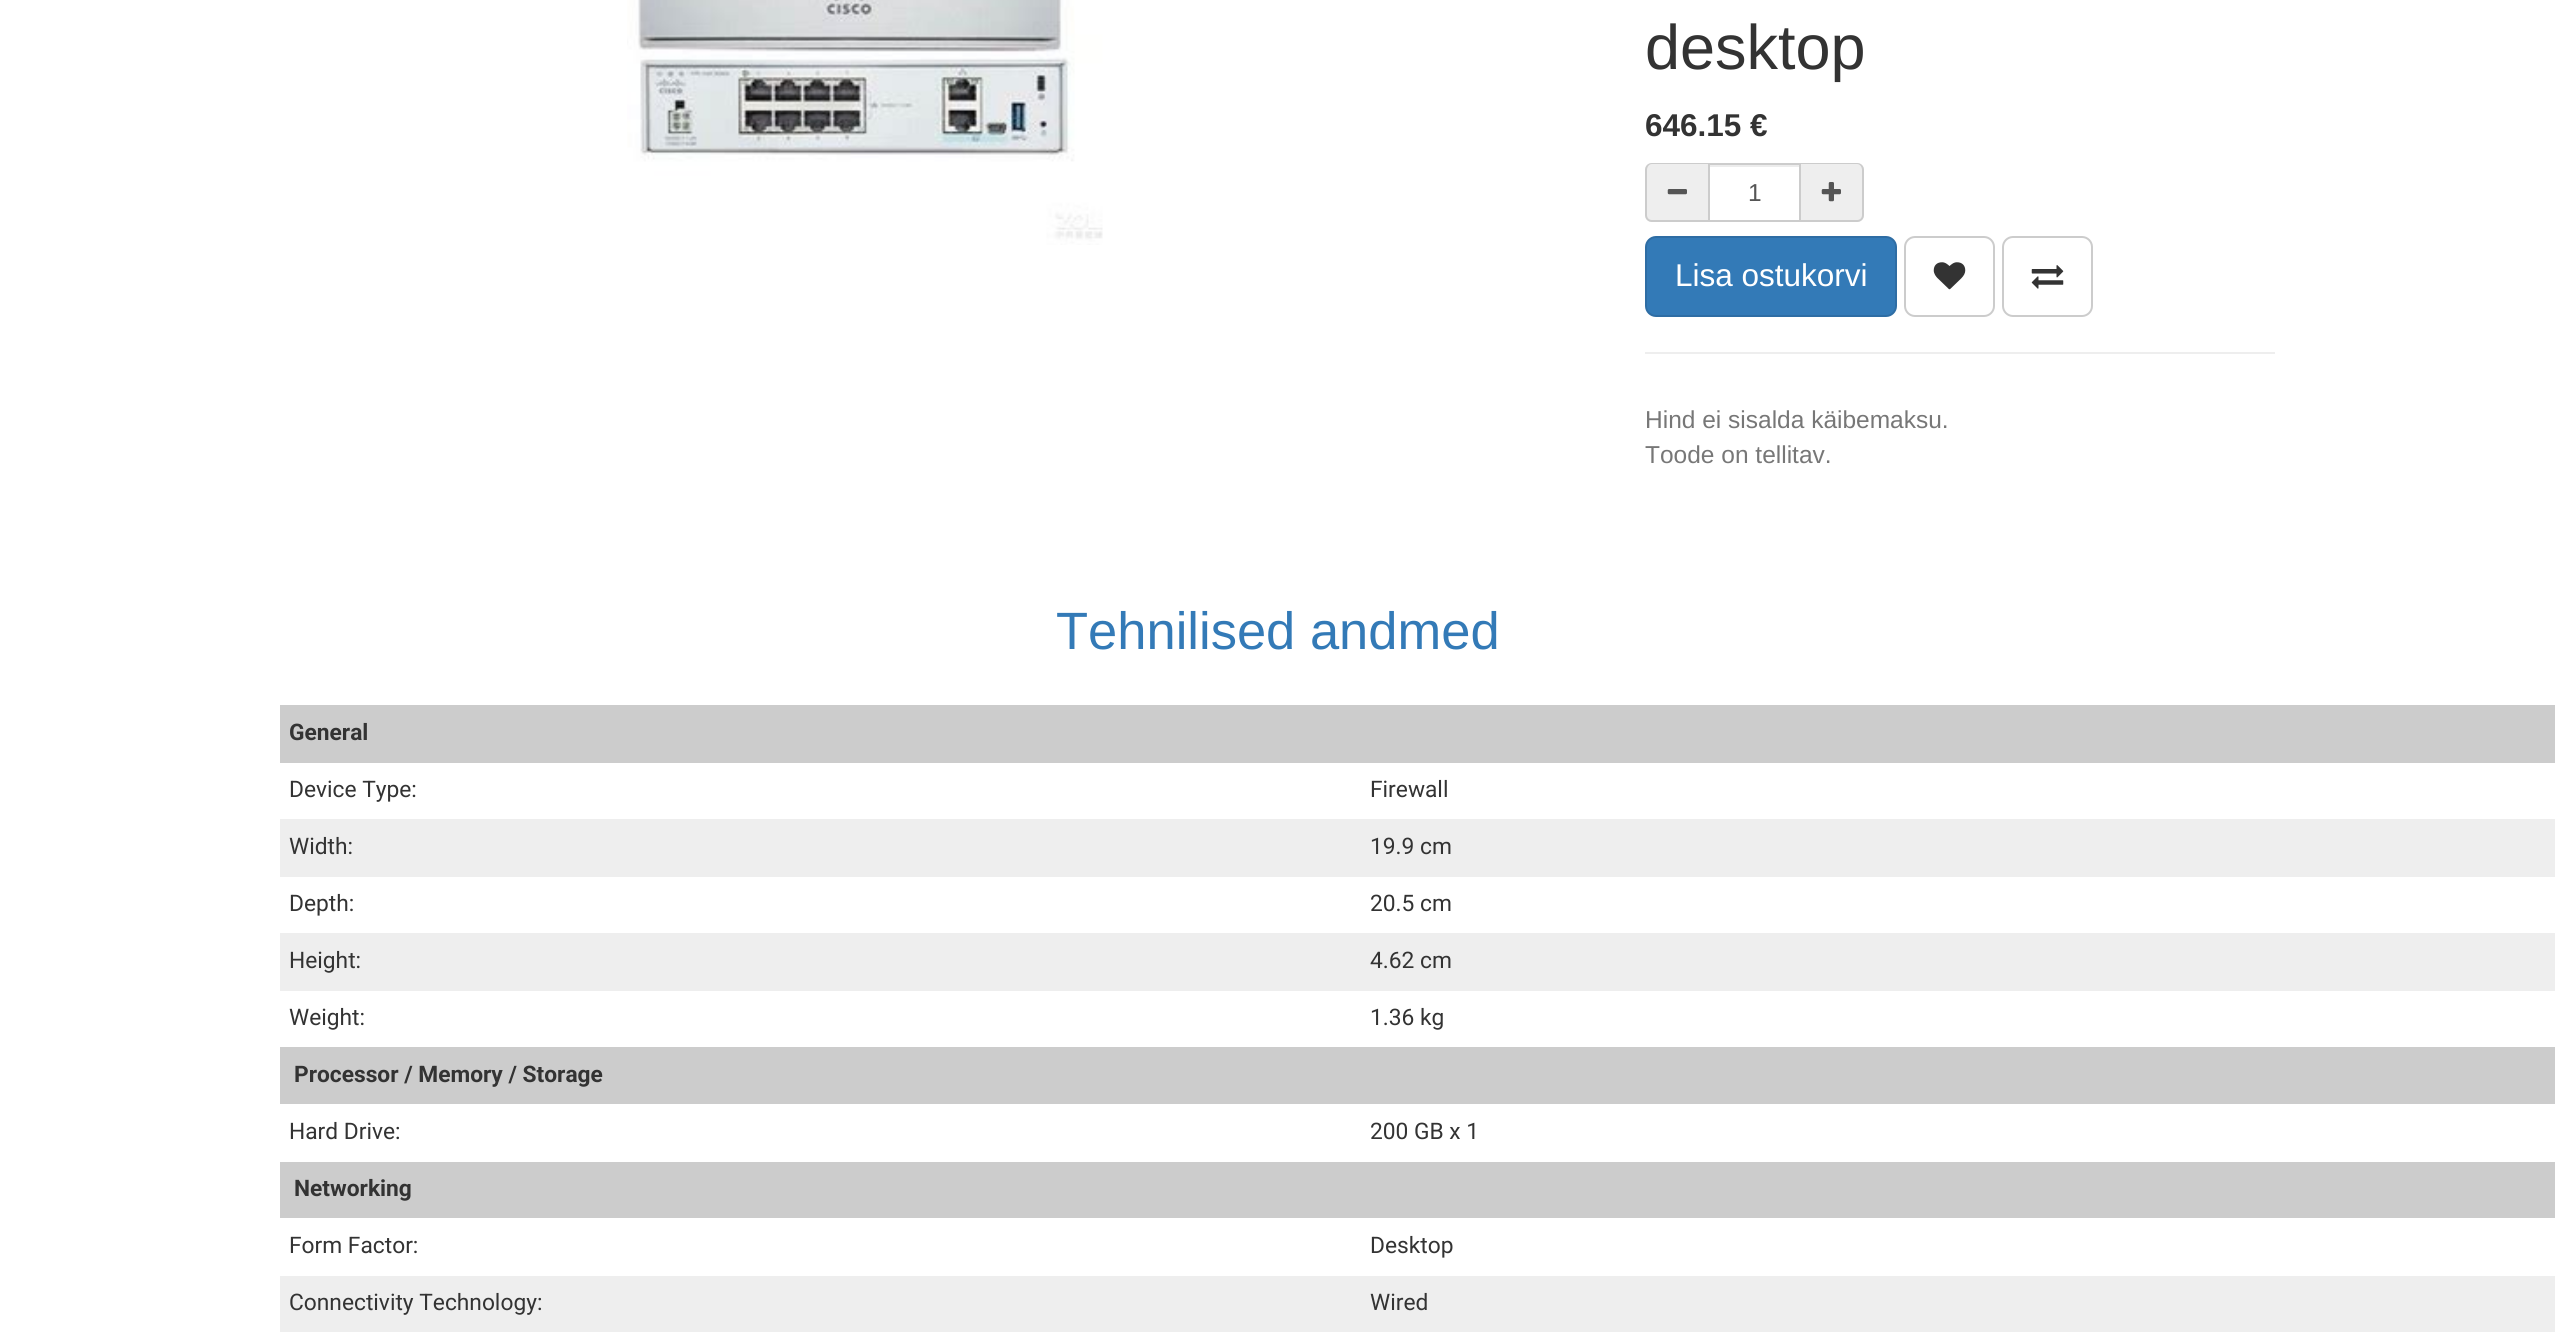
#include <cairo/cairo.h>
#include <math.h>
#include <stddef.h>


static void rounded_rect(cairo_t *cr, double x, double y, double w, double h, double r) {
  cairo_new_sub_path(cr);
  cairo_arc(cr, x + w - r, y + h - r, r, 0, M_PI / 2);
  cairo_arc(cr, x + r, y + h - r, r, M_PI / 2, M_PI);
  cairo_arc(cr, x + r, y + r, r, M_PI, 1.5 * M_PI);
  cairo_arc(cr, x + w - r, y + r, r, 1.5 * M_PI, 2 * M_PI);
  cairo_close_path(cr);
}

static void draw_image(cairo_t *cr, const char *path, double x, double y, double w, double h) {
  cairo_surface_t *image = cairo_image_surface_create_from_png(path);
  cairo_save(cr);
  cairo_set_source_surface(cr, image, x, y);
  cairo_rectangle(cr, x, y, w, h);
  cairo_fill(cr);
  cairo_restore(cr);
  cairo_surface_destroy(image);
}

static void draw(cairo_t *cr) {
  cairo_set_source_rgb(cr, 1, 1, 1);
  cairo_paint(cr);
  draw_image(cr, "images/1.png", 627, 0, 476, 245);
  cairo_set_source_rgb(cr, 238 / 255.0, 238 / 255.0, 238 / 255.0);
  cairo_new_path(cr);
  cairo_move_to(cr, 1652, 163);
  cairo_line_to(cr, 1708, 163);
  cairo_line_to(cr, 1708, 222);
  cairo_line_to(cr, 1652, 222);
  cairo_curve_to(cr, 1648, 222, 1645, 219, 1645, 215);
  cairo_line_to(cr, 1645, 170);
  cairo_curve_to(cr, 1645, 166, 1648, 163, 1652, 163);
  cairo_close_path(cr);
  cairo_fill(cr);
  cairo_set_source_rgb(cr, 204 / 255.0, 204 / 255.0, 204 / 255.0);
  cairo_set_fill_rule(cr, CAIRO_FILL_RULE_EVEN_ODD);
  cairo_new_path(cr);
  cairo_move_to(cr, 1652, 163);
  cairo_line_to(cr, 1708, 163);
  cairo_line_to(cr, 1708, 222);
  cairo_line_to(cr, 1652, 222);
  cairo_curve_to(cr, 1648, 222, 1645, 219, 1645, 215);
  cairo_line_to(cr, 1645, 170);
  cairo_curve_to(cr, 1645, 166, 1648, 163, 1652, 163);
  cairo_close_path(cr);
  cairo_move_to(cr, 1652, 164);
  cairo_line_to(cr, 1708, 164);
  cairo_line_to(cr, 1708, 220);
  cairo_line_to(cr, 1652, 220);
  cairo_curve_to(cr, 1649, 220, 1647, 218, 1647, 215);
  cairo_line_to(cr, 1647, 170);
  cairo_curve_to(cr, 1647, 167, 1649, 164, 1652, 164);
  cairo_close_path(cr);
  cairo_fill(cr);
  draw_image(cr, "images/2.png", 1667, 189, 20, 6);
  cairo_set_source_rgb(cr, 236 / 255.0, 236 / 255.0, 236 / 255.0);
  cairo_rectangle(cr, 1710, 165, 89, 2);
  cairo_fill(cr);
  cairo_rectangle(cr, 1709, 164, 91, 57);
  cairo_set_source_rgb(cr, 204 / 255.0, 204 / 255.0, 204 / 255.0);
  cairo_stroke(cr);
  cairo_set_source_rgb(cr, 238 / 255.0, 238 / 255.0, 238 / 255.0);
  cairo_new_path(cr);
  cairo_move_to(cr, 1801, 163);
  cairo_line_to(cr, 1857, 163);
  cairo_curve_to(cr, 1861, 163, 1864, 166, 1864, 170);
  cairo_line_to(cr, 1864, 215);
  cairo_curve_to(cr, 1864, 219, 1861, 222, 1857, 222);
  cairo_line_to(cr, 1801, 222);
  cairo_close_path(cr);
  cairo_fill(cr);
  cairo_set_source_rgb(cr, 204 / 255.0, 204 / 255.0, 204 / 255.0);
  cairo_new_path(cr);
  cairo_move_to(cr, 1801, 163);
  cairo_line_to(cr, 1857, 163);
  cairo_curve_to(cr, 1861, 163, 1864, 166, 1864, 170);
  cairo_line_to(cr, 1864, 215);
  cairo_curve_to(cr, 1864, 219, 1861, 222, 1857, 222);
  cairo_line_to(cr, 1801, 222);
  cairo_close_path(cr);
  cairo_move_to(cr, 1801, 164);
  cairo_line_to(cr, 1857, 164);
  cairo_curve_to(cr, 1860, 164, 1862, 167, 1862, 170);
  cairo_line_to(cr, 1862, 215);
  cairo_curve_to(cr, 1862, 218, 1860, 220, 1857, 220);
  cairo_line_to(cr, 1801, 220);
  cairo_close_path(cr);
  cairo_fill(cr);
  draw_image(cr, "images/3.png", 1821, 182, 20, 20);
  cairo_set_source_rgb(cr, 51 / 255.0, 122 / 255.0, 183 / 255.0);
  rounded_rect(cr, 1646, 237, 250, 79, 10);
  cairo_fill_preserve(cr);
  cairo_set_source_rgb(cr, 46 / 255.0, 109 / 255.0, 164 / 255.0);
  cairo_stroke(cr);
  rounded_rect(cr, 1905, 237, 89, 79, 10);
  cairo_set_source_rgb(cr, 204 / 255.0, 204 / 255.0, 204 / 255.0);
  cairo_stroke(cr);
  draw_image(cr, "images/4.png", 1933, 262, 33, 28);
  rounded_rect(cr, 2003, 237, 89, 79, 10);
  cairo_stroke(cr);
  draw_image(cr, "images/5.png", 2031, 265, 33, 24);
  cairo_set_source_rgb(cr, 238 / 255.0, 238 / 255.0, 238 / 255.0);
  cairo_rectangle(cr, 1645, 352, 630, 2);
  cairo_fill(cr);
  cairo_set_source_rgb(cr, 204 / 255.0, 204 / 255.0, 204 / 255.0);
  cairo_rectangle(cr, 280, 705, 2275, 58);
  cairo_fill(cr);
  cairo_set_source_rgb(cr, 238 / 255.0, 238 / 255.0, 238 / 255.0);
  cairo_rectangle(cr, 280, 819, 2275, 58);
  cairo_fill(cr);
  cairo_rectangle(cr, 280, 933, 2275, 58);
  cairo_fill(cr);
  cairo_set_source_rgb(cr, 204 / 255.0, 204 / 255.0, 204 / 255.0);
  cairo_rectangle(cr, 280, 1047, 2275, 57);
  cairo_fill(cr);
  cairo_rectangle(cr, 280, 1162, 2275, 56);
  cairo_fill(cr);
  cairo_set_source_rgb(cr, 238 / 255.0, 238 / 255.0, 238 / 255.0);
  cairo_rectangle(cr, 280, 1276, 2275, 56);
  cairo_fill(cr);
  cairo_select_font_face(cr, "Liberation Sans", CAIRO_FONT_SLANT_NORMAL, CAIRO_FONT_WEIGHT_NORMAL);
  cairo_set_font_size(cr, 63);
  cairo_set_source_rgb(cr, 51 / 255.0, 51 / 255.0, 51 / 255.0);
  cairo_move_to(cr, 1645, 69);
  cairo_show_text(cr, "desktop");
  cairo_select_font_face(cr, "Liberation Sans", CAIRO_FONT_SLANT_NORMAL, CAIRO_FONT_WEIGHT_BOLD);
  cairo_set_font_size(cr, 31.5);
  cairo_move_to(cr, 1645, 136);
  cairo_show_text(cr, "646.15 €");
  cairo_select_font_face(cr, "Liberation Sans", CAIRO_FONT_SLANT_NORMAL, CAIRO_FONT_WEIGHT_NORMAL);
  cairo_set_font_size(cr, 24.5);
  cairo_set_source_rgb(cr, 85 / 255.0, 85 / 255.0, 85 / 255.0);
  cairo_move_to(cr, 1748, 201);
  cairo_show_text(cr, "1");
  cairo_set_font_size(cr, 31.5);
  cairo_set_source_rgb(cr, 1, 1, 1);
  cairo_move_to(cr, 1675, 286);
  cairo_show_text(cr, "Lisa ostukorvi");
  cairo_set_font_size(cr, 24.5);
  cairo_set_source_rgb(cr, 119 / 255.0, 119 / 255.0, 119 / 255.0);
  cairo_move_to(cr, 1645, 428);
  cairo_show_text(cr, "Hind ei sisalda käibemaksu.");
  cairo_move_to(cr, 1645, 463);
  cairo_show_text(cr, "Toode on tellitav.");
  cairo_set_font_size(cr, 52.5);
  cairo_set_source_rgb(cr, 51 / 255.0, 122 / 255.0, 183 / 255.0);
  cairo_move_to(cr, 1056, 649);
  cairo_show_text(cr, "Tehnilised andmed");
  cairo_select_font_face(cr, "Roboto", CAIRO_FONT_SLANT_NORMAL, CAIRO_FONT_WEIGHT_BOLD);
  cairo_set_font_size(cr, 22.75);
  cairo_set_source_rgb(cr, 51 / 255.0, 51 / 255.0, 51 / 255.0);
  cairo_move_to(cr, 289, 740);
  cairo_show_text(cr, "General");
  cairo_select_font_face(cr, "Roboto", CAIRO_FONT_SLANT_NORMAL, CAIRO_FONT_WEIGHT_NORMAL);
  cairo_move_to(cr, 289, 797);
  cairo_show_text(cr, "Device Type:");
  cairo_move_to(cr, 1370, 797);
  cairo_show_text(cr, "Firewall");
  cairo_move_to(cr, 289, 854);
  cairo_show_text(cr, "Width:");
  cairo_move_to(cr, 1370, 854);
  cairo_show_text(cr, "19.9 cm");
  cairo_move_to(cr, 289, 911);
  cairo_show_text(cr, "Depth:");
  cairo_move_to(cr, 1370, 911);
  cairo_show_text(cr, "20.5 cm");
  cairo_move_to(cr, 289, 968);
  cairo_show_text(cr, "Height:");
  cairo_move_to(cr, 1370, 968);
  cairo_show_text(cr, "4.62 cm");
  cairo_move_to(cr, 289, 1025);
  cairo_show_text(cr, "Weight:");
  cairo_move_to(cr, 1370, 1025);
  cairo_show_text(cr, "1.36 kg");
  cairo_select_font_face(cr, "Roboto", CAIRO_FONT_SLANT_NORMAL, CAIRO_FONT_WEIGHT_BOLD);
  cairo_move_to(cr, 294, 1082);
  cairo_show_text(cr, "Processor / Memory / Storage");
  cairo_select_font_face(cr, "Roboto", CAIRO_FONT_SLANT_NORMAL, CAIRO_FONT_WEIGHT_NORMAL);
  cairo_move_to(cr, 289, 1139);
  cairo_show_text(cr, "Hard Drive:");
  cairo_move_to(cr, 1370, 1139);
  cairo_show_text(cr, "200 GB x 1");
  cairo_select_font_face(cr, "Roboto", CAIRO_FONT_SLANT_NORMAL, CAIRO_FONT_WEIGHT_BOLD);
  cairo_move_to(cr, 294, 1196);
  cairo_show_text(cr, "Networking");
  cairo_select_font_face(cr, "Roboto", CAIRO_FONT_SLANT_NORMAL, CAIRO_FONT_WEIGHT_NORMAL);
  cairo_move_to(cr, 289, 1253);
  cairo_show_text(cr, "Form Factor:");
  cairo_move_to(cr, 1370, 1253);
  cairo_show_text(cr, "Desktop");
  cairo_move_to(cr, 289, 1310);
  cairo_show_text(cr, "Connectivity Technology:");
  cairo_move_to(cr, 1370, 1310);
  cairo_show_text(cr, "Wired");
}

int main(void) {
  cairo_surface_t *surface = cairo_image_surface_create(CAIRO_FORMAT_RGB24, 2555, 1341);
  cairo_t *cr = cairo_create(surface);
  cairo_font_options_t *options = cairo_font_options_create();
  cairo_font_options_set_hint_metrics(options, CAIRO_HINT_METRICS_OFF);
  cairo_font_options_set_hint_style(options, CAIRO_HINT_STYLE_NONE);
  cairo_set_font_options(cr, options);
  cairo_set_miter_limit(cr, 4);
  draw(cr);
  cairo_surface_write_to_png(surface, "out.png");
  cairo_font_options_destroy(options);
  cairo_destroy(cr);
  cairo_surface_destroy(surface);
  return 0;
}
